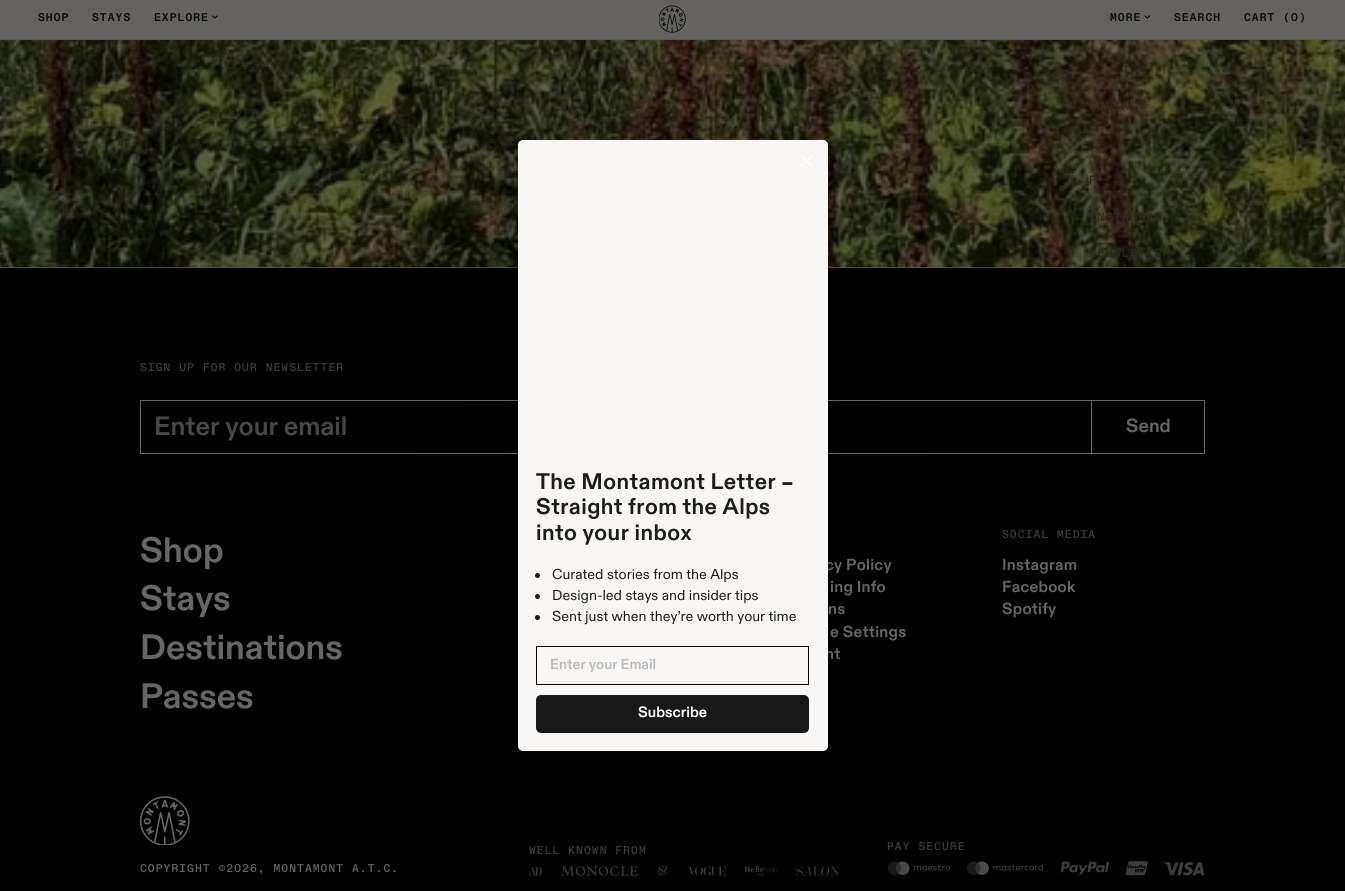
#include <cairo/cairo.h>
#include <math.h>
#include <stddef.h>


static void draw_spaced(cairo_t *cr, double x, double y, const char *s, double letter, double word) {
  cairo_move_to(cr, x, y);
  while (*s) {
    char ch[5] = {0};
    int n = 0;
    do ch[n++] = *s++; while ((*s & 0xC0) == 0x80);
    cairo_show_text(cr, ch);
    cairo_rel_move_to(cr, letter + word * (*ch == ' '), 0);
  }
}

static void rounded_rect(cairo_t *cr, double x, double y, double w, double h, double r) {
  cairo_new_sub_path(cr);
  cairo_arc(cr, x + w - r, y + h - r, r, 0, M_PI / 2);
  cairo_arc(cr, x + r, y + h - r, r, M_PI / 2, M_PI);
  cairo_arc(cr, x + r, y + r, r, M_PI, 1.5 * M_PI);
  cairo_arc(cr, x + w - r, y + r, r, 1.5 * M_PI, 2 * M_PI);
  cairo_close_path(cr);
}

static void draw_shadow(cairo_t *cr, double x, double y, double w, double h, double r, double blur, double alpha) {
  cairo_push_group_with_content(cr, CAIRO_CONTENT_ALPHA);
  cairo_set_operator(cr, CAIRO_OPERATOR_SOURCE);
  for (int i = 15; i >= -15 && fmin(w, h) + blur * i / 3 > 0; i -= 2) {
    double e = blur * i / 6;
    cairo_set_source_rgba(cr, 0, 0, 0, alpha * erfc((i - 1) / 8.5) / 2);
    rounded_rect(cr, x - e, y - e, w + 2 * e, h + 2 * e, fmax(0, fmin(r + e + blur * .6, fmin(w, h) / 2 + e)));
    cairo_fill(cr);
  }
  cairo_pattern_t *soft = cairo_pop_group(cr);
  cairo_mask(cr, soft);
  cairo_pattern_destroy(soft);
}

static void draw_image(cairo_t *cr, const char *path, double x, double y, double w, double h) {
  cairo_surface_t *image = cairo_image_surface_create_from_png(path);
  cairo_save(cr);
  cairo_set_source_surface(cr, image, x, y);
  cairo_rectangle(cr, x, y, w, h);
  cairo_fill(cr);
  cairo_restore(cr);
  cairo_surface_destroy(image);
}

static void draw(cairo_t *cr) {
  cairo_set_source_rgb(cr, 0, 0, 0);
  cairo_paint(cr);
  cairo_set_source_rgb(cr, 100 / 255.0, 99 / 255.0, 98 / 255.0);
  cairo_rectangle(cr, 0, 0, 1345, 39);
  cairo_fill(cr);
  cairo_set_source_rgb(cr, 88 / 255.0, 88 / 255.0, 88 / 255.0);
  cairo_rectangle(cr, 0, 39, 1345, 1);
  cairo_fill(cr);
  draw_image(cr, "images/1.png", 212, 15, 6, 4);
  draw_image(cr, "images/2.png", 659, 5, 27, 28);
  draw_image(cr, "images/3.png", 1144, 15, 7, 4);
  cairo_set_source_rgb(cr, 89 / 255.0, 89 / 255.0, 88 / 255.0);
  cairo_rectangle(cr, 0, 267, 1345, 1);
  cairo_fill(cr);
  draw_image(cr, "images/4.png", 0, 40, 1345, 228);
  cairo_rectangle(cr, 140.5, 400.5, 1064, 53);
  cairo_set_source_rgb(cr, 102 / 255.0, 102 / 255.0, 102 / 255.0);
  cairo_set_line_width(cr, 1);
  cairo_stroke(cr);
  cairo_rectangle(cr, 1091, 401, 1, 52);
  cairo_fill(cr);
  draw_image(cr, "images/5.png", 529, 867, 13, 9);
  draw_image(cr, "images/6.png", 561, 866, 77, 10);
  draw_image(cr, "images/7.png", 658, 866, 10, 10);
  draw_image(cr, "images/8.png", 688, 866, 38, 10);
  draw_image(cr, "images/9.png", 745, 866, 32, 10);
  draw_image(cr, "images/10.png", 796, 866, 43, 10);
  draw_image(cr, "images/11.png", 888, 861, 63, 14);
  draw_image(cr, "images/12.png", 967, 861, 78, 14);
  draw_image(cr, "images/13.png", 1060, 861, 49, 14);
  draw_image(cr, "images/14.png", 1125, 861, 23, 15);
  draw_image(cr, "images/15.png", 1163, 862, 42, 14);
  draw_image(cr, "images/16.png", 140, 796, 50, 49);
  cairo_set_source_rgb(cr, 0, 0, 0);
  draw_shadow(cr, 518, 170, 310, 611, 5, 65.5, 0.12);
  cairo_select_font_face(cr, "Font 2", CAIRO_FONT_SLANT_NORMAL, CAIRO_FONT_WEIGHT_BOLD);
  cairo_set_font_size(cr, 11.25);
  cairo_set_source_rgb(cr, 12 / 255.0, 12 / 255.0, 11 / 255.0);
  draw_spaced(cr, 38, 21, "SHOP", 1.1, 0);
  draw_spaced(cr, 92, 21, "STAYS", 1.1, 0);
  draw_spaced(cr, 154, 21, "EXPLORE", 1.1, 0);
  draw_spaced(cr, 1110, 21, "MORE", 1.1, 0);
  cairo_set_font_size(cr, 12);
  cairo_set_source_rgb(cr, 50 / 255.0, 42 / 255.0, 24 / 255.0);
  draw_spaced(cr, 1122, 74, "T", 1, 0);
  draw_spaced(cr, 1089, 110, "CONTACT", 1, 0);
  cairo_set_source_rgb(cr, 45 / 255.0, 36 / 255.0, 24 / 255.0);
  draw_spaced(cr, 1089, 184, "P", 1, 0);
  cairo_set_source_rgb(cr, 50 / 255.0, 42 / 255.0, 24 / 255.0);
  draw_spaced(cr, 1089, 221, "INSTAGRAM", 1, 0);
  cairo_set_source_rgb(cr, 40 / 255.0, 42 / 255.0, 24 / 255.0);
  draw_spaced(cr, 1089, 257, "NEWSLETTER", 1, 0);
  cairo_set_font_size(cr, 11.25);
  cairo_set_source_rgb(cr, 12 / 255.0, 12 / 255.0, 11 / 255.0);
  draw_spaced(cr, 1174, 21, "SEARCH", 1.1, 0);
  draw_spaced(cr, 1244, 21, "CART (0)", 1.1, 0);
  cairo_select_font_face(cr, "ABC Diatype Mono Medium", CAIRO_FONT_SLANT_NORMAL, CAIRO_FONT_WEIGHT_NORMAL);
  cairo_set_source_rgb(cr, 60 / 255.0, 60 / 255.0, 60 / 255.0);
  draw_spaced(cr, 140, 371, "SIGN UP FOR OUR NEWSLETTER", 1.1, 0);
  cairo_select_font_face(cr, "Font", CAIRO_FONT_SLANT_NORMAL, CAIRO_FONT_WEIGHT_BOLD);
  cairo_set_font_size(cr, 26.5);
  cairo_set_source_rgb(cr, 71 / 255.0, 71 / 255.0, 71 / 255.0);
  cairo_move_to(cr, 154, 435);
  cairo_show_text(cr, "Enter your email");
  cairo_set_font_size(cr, 19);
  cairo_set_source_rgb(cr, 102 / 255.0, 102 / 255.0, 102 / 255.0);
  cairo_move_to(cr, 1126, 432);
  cairo_show_text(cr, "Send");
  cairo_set_font_size(cr, 35.25);
  cairo_move_to(cr, 140, 562);
  cairo_show_text(cr, "Shop");
  cairo_move_to(cr, 140, 610);
  cairo_show_text(cr, "Stays");
  cairo_move_to(cr, 140, 659);
  cairo_show_text(cr, "Destinations");
  cairo_move_to(cr, 140, 708);
  cairo_show_text(cr, "Passes");
  cairo_set_font_size(cr, 16);
  draw_spaced(cr, 825, 570, "cy Policy", 0.25, 0);
  draw_spaced(cr, 830, 592, "ing Info", 0.25, 0);
  draw_spaced(cr, 828, 614, "ns", 0.25, 0);
  draw_spaced(cr, 830, 637, "e Settings", 0.25, 0);
  draw_spaced(cr, 825, 659, "nt", 0.25, 0);
  cairo_select_font_face(cr, "ABC Diatype Mono Medium", CAIRO_FONT_SLANT_NORMAL, CAIRO_FONT_WEIGHT_NORMAL);
  cairo_set_font_size(cr, 11.25);
  cairo_set_source_rgb(cr, 60 / 255.0, 60 / 255.0, 60 / 255.0);
  draw_spaced(cr, 1002, 538, "SOCIAL MEDIA", 1.1, 0);
  cairo_select_font_face(cr, "Font", CAIRO_FONT_SLANT_NORMAL, CAIRO_FONT_WEIGHT_BOLD);
  cairo_set_font_size(cr, 16);
  cairo_set_source_rgb(cr, 102 / 255.0, 102 / 255.0, 102 / 255.0);
  draw_spaced(cr, 1002, 570, "Instagram", 0.25, 0);
  draw_spaced(cr, 1002, 592, "Facebook", 0.25, 0);
  draw_spaced(cr, 1002, 614, "Spotify", 0.25, 0);
  cairo_select_font_face(cr, "ABC Diatype Mono Medium", CAIRO_FONT_SLANT_NORMAL, CAIRO_FONT_WEIGHT_NORMAL);
  cairo_set_font_size(cr, 11.25);
  cairo_set_source_rgb(cr, 60 / 255.0, 60 / 255.0, 60 / 255.0);
  draw_spaced(cr, 529, 854, "WELL KNOWN FROM", 1.1, 0);
  draw_spaced(cr, 887, 850, "PAY SECURE", 1.1, 0);
  cairo_set_source_rgb(cr, 102 / 255.0, 102 / 255.0, 102 / 255.0);
  draw_spaced(cr, 140, 872, "COPYRIGHT ©2026, MONTAMONT A.T.C.", 1.1, 0);
  cairo_set_source_rgb(cr, 249 / 255.0, 247 / 255.0, 245 / 255.0);
  rounded_rect(cr, 518, 140, 310, 611, 5);
  cairo_fill(cr);
  draw_image(cr, "images/17.png", 800, 155, 12, 12);
  cairo_select_font_face(cr, "Font", CAIRO_FONT_SLANT_NORMAL, CAIRO_FONT_WEIGHT_BOLD);
  cairo_set_font_size(cr, 22.5);
  cairo_set_source_rgb(cr, 29 / 255.0, 29 / 255.0, 28 / 255.0);
  draw_spaced(cr, 536, 489, "The Montamont Letter –", 0.45, 0);
  draw_spaced(cr, 536, 514, "Straight from the Alps", 0.45, 0);
  draw_spaced(cr, 536, 540, "into your inbox", 0.45, 0);
  cairo_new_path(cr);
  cairo_arc(cr, 537.5, 575.5, 2.5, 0, 2 * M_PI);
  cairo_fill(cr);
  cairo_select_font_face(cr, "Font", CAIRO_FONT_SLANT_NORMAL, CAIRO_FONT_WEIGHT_NORMAL);
  cairo_set_font_size(cr, 14.4);
  cairo_move_to(cr, 552, 579);
  cairo_show_text(cr, "Curated stories from the Alps");
  cairo_new_path(cr);
  cairo_arc(cr, 537.5, 596.5, 2.5, 0, 2 * M_PI);
  cairo_fill(cr);
  cairo_move_to(cr, 552, 600);
  cairo_show_text(cr, "Design-led stays and insider tips");
  cairo_new_path(cr);
  cairo_arc(cr, 537.5, 617.5, 2.5, 0, 2 * M_PI);
  cairo_fill(cr);
  cairo_move_to(cr, 552, 621);
  cairo_show_text(cr, "Sent just when they’re worth your time");
  cairo_rectangle(cr, 536.5, 646.5, 272, 38);
  cairo_set_source_rgb(cr, 0, 0, 0);
  cairo_stroke(cr);
  cairo_select_font_face(cr, "Font", CAIRO_FONT_SLANT_NORMAL, CAIRO_FONT_WEIGHT_BOLD);
  cairo_set_source_rgb(cr, 187 / 255.0, 187 / 255.0, 187 / 255.0);
  cairo_move_to(cr, 550, 669);
  cairo_show_text(cr, "Enter your Email");
  cairo_set_source_rgb(cr, 24 / 255.0, 24 / 255.0, 24 / 255.0);
  rounded_rect(cr, 537.5, 696.5, 270, 35, 3.5);
  cairo_fill_preserve(cr);
  cairo_set_line_width(cr, 3);
  cairo_stroke(cr);
  cairo_set_font_size(cr, 15);
  cairo_set_source_rgb(cr, 1, 1, 1);
  cairo_move_to(cr, 638, 717);
  cairo_show_text(cr, "Subscribe");
}

int main(void) {
  cairo_surface_t *surface = cairo_image_surface_create(CAIRO_FORMAT_RGB24, 1345, 891);
  cairo_t *cr = cairo_create(surface);
  cairo_font_options_t *options = cairo_font_options_create();
  cairo_font_options_set_hint_metrics(options, CAIRO_HINT_METRICS_OFF);
  cairo_font_options_set_hint_style(options, CAIRO_HINT_STYLE_NONE);
  cairo_set_font_options(cr, options);
  cairo_set_miter_limit(cr, 4);
  draw(cr);
  cairo_surface_write_to_png(surface, "out.png");
  cairo_font_options_destroy(options);
  cairo_destroy(cr);
  cairo_surface_destroy(surface);
  return 0;
}
